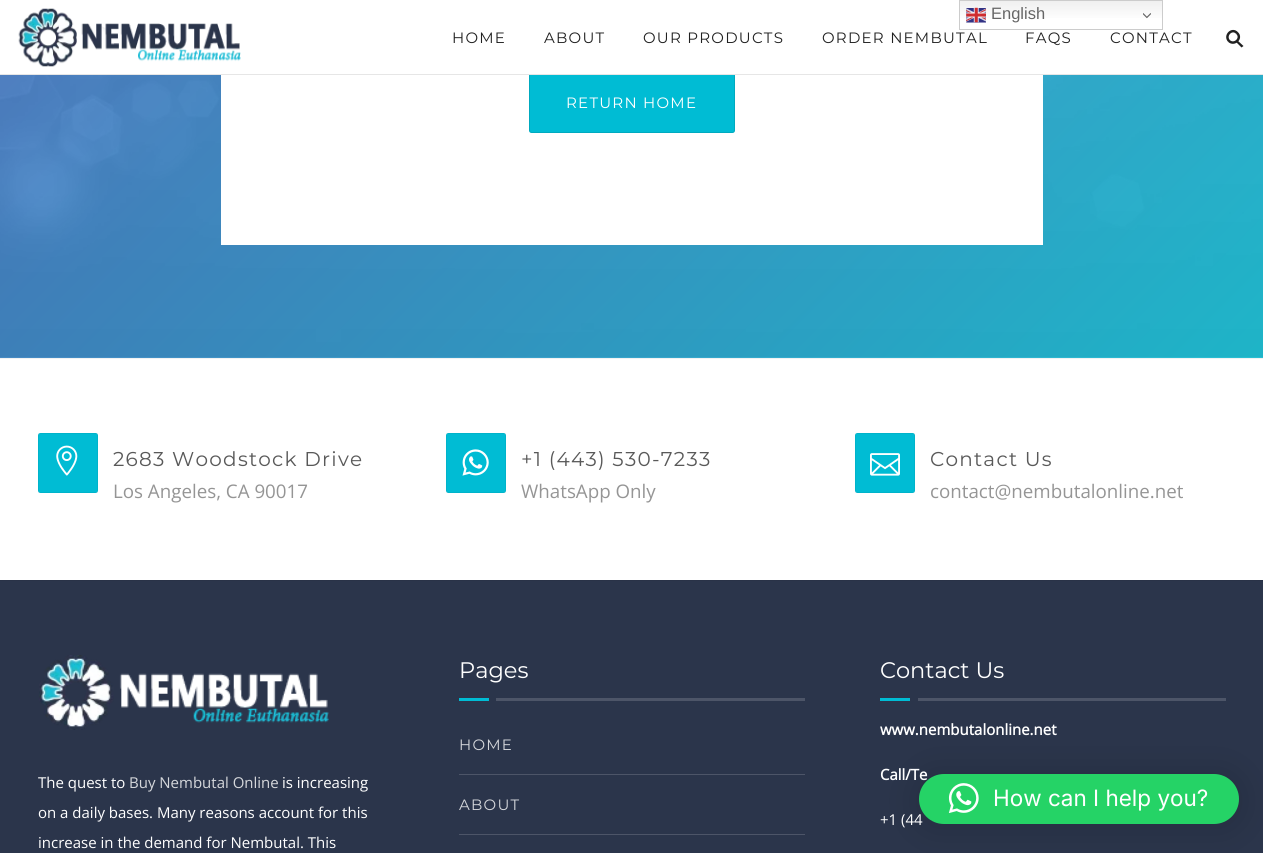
#include <cairo/cairo.h>
#include <math.h>
#include <stddef.h>


static void draw_spaced(cairo_t *cr, double x, double y, const char *s, double letter, double word) {
  cairo_move_to(cr, x, y);
  while (*s) {
    char ch[5] = {0};
    int n = 0;
    do ch[n++] = *s++; while ((*s & 0xC0) == 0x80);
    cairo_show_text(cr, ch);
    cairo_rel_move_to(cr, letter + word * (*ch == ' '), 0);
  }
}

static void rounded_rect(cairo_t *cr, double x, double y, double w, double h, double r) {
  cairo_new_sub_path(cr);
  cairo_arc(cr, x + w - r, y + h - r, r, 0, M_PI / 2);
  cairo_arc(cr, x + r, y + h - r, r, M_PI / 2, M_PI);
  cairo_arc(cr, x + r, y + r, r, M_PI, 1.5 * M_PI);
  cairo_arc(cr, x + w - r, y + r, r, 1.5 * M_PI, 2 * M_PI);
  cairo_close_path(cr);
}

static void draw_shadow(cairo_t *cr, double x, double y, double w, double h, double r, double blur, double alpha) {
  cairo_push_group_with_content(cr, CAIRO_CONTENT_ALPHA);
  cairo_set_operator(cr, CAIRO_OPERATOR_SOURCE);
  for (int i = 15; i >= -15 && fmin(w, h) + blur * i / 3 > 0; i -= 2) {
    double e = blur * i / 6;
    cairo_set_source_rgba(cr, 0, 0, 0, alpha * erfc((i - 1) / 8.5) / 2);
    rounded_rect(cr, x - e, y - e, w + 2 * e, h + 2 * e, fmax(0, fmin(r + e + blur * .6, fmin(w, h) / 2 + e)));
    cairo_fill(cr);
  }
  cairo_pattern_t *soft = cairo_pop_group(cr);
  cairo_mask(cr, soft);
  cairo_pattern_destroy(soft);
}

static void draw_image(cairo_t *cr, const char *path, double x, double y, double w, double h) {
  cairo_surface_t *image = cairo_image_surface_create_from_png(path);
  cairo_save(cr);
  cairo_set_source_surface(cr, image, x, y);
  cairo_rectangle(cr, x, y, w, h);
  cairo_fill(cr);
  cairo_restore(cr);
  cairo_surface_destroy(image);
}

static void draw(cairo_t *cr) {
  cairo_pattern_t *gradient;
  cairo_set_source_rgb(cr, 1, 1, 1);
  cairo_paint(cr);
  gradient = cairo_pattern_create_linear(1061, 0, 1061, 30);
  cairo_pattern_add_color_stop_rgba(gradient, 0, 239 / 255.0, 239 / 255.0, 239 / 255.0, 1);
  cairo_pattern_add_color_stop_rgba(gradient, 0.7, 1, 1, 1, 1);
  cairo_set_source(cr, gradient);
  cairo_pattern_destroy(gradient);
  cairo_rectangle(cr, 960, 1, 202, 17);
  cairo_fill(cr);
  cairo_rectangle(cr, 959.5, 0.5, 203, 29);
  cairo_set_source_rgb(cr, 204 / 255.0, 204 / 255.0, 204 / 255.0);
  cairo_set_line_width(cr, 1);
  cairo_stroke(cr);
  draw_image(cr, "images/1.png", 966, 7, 20, 16);
  draw_image(cr, "images/2.png", 1143, 13, 8, 6);
  draw_image(cr, "images/4.png", 0, 75, 1263, 283);
  gradient = cairo_pattern_create_linear(1143, 478, 121, -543);
  cairo_pattern_add_color_stop_rgba(gradient, 0, 0, 188 / 255.0, 212 / 255.0, 0.8);
  cairo_pattern_add_color_stop_rgba(gradient, 1, 63 / 255.0, 81 / 255.0, 181 / 255.0, 0.8);
  cairo_set_source(cr, gradient);
  cairo_pattern_destroy(gradient);
  cairo_rectangle(cr, 0, 75, 1263, 283);
  cairo_fill(cr);
  cairo_set_source_rgb(cr, 1, 1, 1);
  cairo_rectangle(cr, 221, 75, 822, 170);
  cairo_fill(cr);
  cairo_set_source_rgb(cr, 0, 188 / 255.0, 212 / 255.0);
  rounded_rect(cr, 529, 73, 206, 60, 2.5);
  cairo_fill(cr);
  rounded_rect(cr, 529.5, 73.5, 205, 59, 2);
  cairo_set_source_rgba(cr, 0, 0, 0, 0.1);
  cairo_stroke(cr);
  cairo_set_source_rgb(cr, 1, 1, 1);
  cairo_rectangle(cr, 529, 73, 206, 1);
  cairo_fill(cr);
  cairo_set_source_rgb(cr, 230 / 255.0, 230 / 255.0, 230 / 255.0);
  cairo_rectangle(cr, 0, 74, 1263, 1);
  cairo_fill(cr);
  draw_image(cr, "images/3.png", 18, 8, 223, 59);
  cairo_new_path(cr);
  cairo_move_to(cr, 1229, 41);
  cairo_curve_to(cr, 1224, 35.5, 1232, 27.5, 1237, 33);
  cairo_move_to(cr, 1237, 33);
  cairo_curve_to(cr, 1242.5, 38, 1234.5, 46, 1229, 41);
  cairo_set_source_rgb(cr, 33 / 255.0, 33 / 255.0, 33 / 255.0);
  cairo_set_line_width(cr, 2.5);
  cairo_stroke(cr);
  cairo_new_path(cr);
  cairo_move_to(cr, 1237, 40);
  cairo_line_to(cr, 1243.5, 46);
  cairo_line_to(cr, 1241.5, 47.5);
  cairo_line_to(cr, 1235.5, 41.5);
  cairo_close_path(cr);
  cairo_fill(cr);
  cairo_set_source_rgb(cr, 242 / 255.0, 242 / 255.0, 242 / 255.0);
  cairo_rectangle(cr, 0, 358, 1263, 1);
  cairo_fill(cr);
  cairo_set_source_rgb(cr, 0, 188 / 255.0, 212 / 255.0);
  rounded_rect(cr, 38, 433, 60, 60, 2.5);
  cairo_fill(cr);
  cairo_rectangle(cr, 38.5, 433.5, 59, 59);
  cairo_set_source_rgba(cr, 0, 0, 0, 0.05);
  cairo_set_line_width(cr, 1);
  cairo_stroke(cr);
  draw_image(cr, "images/5.png", 56, 445, 22, 31);
  cairo_set_source_rgb(cr, 0, 188 / 255.0, 212 / 255.0);
  rounded_rect(cr, 446, 433, 60, 60, 2.5);
  cairo_fill(cr);
  cairo_rectangle(cr, 446.5, 433.5, 59, 59);
  cairo_set_source_rgba(cr, 0, 0, 0, 0.05);
  cairo_stroke(cr);
  draw_image(cr, "images/6.png", 462, 449, 27, 27);
  cairo_set_source_rgb(cr, 0, 188 / 255.0, 212 / 255.0);
  rounded_rect(cr, 855, 433, 60, 60, 2.5);
  cairo_fill(cr);
  cairo_rectangle(cr, 855.5, 433.5, 59, 59);
  cairo_set_source_rgba(cr, 0, 0, 0, 0.05);
  cairo_stroke(cr);
  draw_image(cr, "images/7.png", 870, 453, 30, 23);
  cairo_set_source_rgb(cr, 43 / 255.0, 53 / 255.0, 75 / 255.0);
  cairo_rectangle(cr, 0, 581, 1263, 272);
  cairo_fill(cr);
  cairo_set_source_rgb(cr, 41 / 255.0, 50 / 255.0, 71 / 255.0);
  cairo_rectangle(cr, 0, 580, 1263, 1);
  cairo_fill(cr);
  draw_image(cr, "images/8.png", 39, 655, 290, 75);
  cairo_set_source_rgb(cr, 0, 188 / 255.0, 212 / 255.0);
  cairo_rectangle(cr, 459, 698, 30, 3);
  cairo_fill(cr);
  cairo_set_source_rgb(cr, 77 / 255.0, 85 / 255.0, 104 / 255.0);
  cairo_rectangle(cr, 496, 698, 309, 3);
  cairo_fill(cr);
  cairo_rectangle(cr, 459, 774, 346, 1);
  cairo_fill(cr);
  cairo_rectangle(cr, 459, 834, 346, 1);
  cairo_fill(cr);
  cairo_set_source_rgb(cr, 0, 188 / 255.0, 212 / 255.0);
  cairo_rectangle(cr, 880, 698, 30, 3);
  cairo_fill(cr);
  cairo_set_source_rgb(cr, 77 / 255.0, 85 / 255.0, 104 / 255.0);
  cairo_rectangle(cr, 918, 698, 308, 3);
  cairo_fill(cr);
  cairo_set_source_rgb(cr, 0, 0, 0);
  draw_shadow(cr, 919, 776, 320, 50, 25, 20, 0.16);
  cairo_select_font_face(cr, "Liberation Sans", CAIRO_FONT_SLANT_NORMAL, CAIRO_FONT_WEIGHT_NORMAL);
  cairo_set_font_size(cr, 16.5);
  cairo_set_source_rgb(cr, 102 / 255.0, 102 / 255.0, 102 / 255.0);
  cairo_move_to(cr, 991, 19);
  cairo_show_text(cr, "English");
  cairo_select_font_face(cr, "Montserrat Thin", CAIRO_FONT_SLANT_NORMAL, CAIRO_FONT_WEIGHT_NORMAL);
  cairo_set_font_size(cr, 15);
  cairo_set_source_rgb(cr, 33 / 255.0, 33 / 255.0, 33 / 255.0);
  draw_spaced(cr, 452, 43, "HOME", 1.25, 0);
  draw_spaced(cr, 544, 43, "ABOUT", 1.25, 0);
  draw_spaced(cr, 643, 43, "OUR PRODUCTS", 1.25, 0);
  draw_spaced(cr, 822, 43, "ORDER NEMBUTAL", 1.25, 0);
  draw_spaced(cr, 1025, 43, "FAQS", 1.25, 0);
  draw_spaced(cr, 1110, 43, "CONTACT", 1.25, 0);
  cairo_set_source_rgb(cr, 1, 1, 1);
  draw_spaced(cr, 566, 108, "RETURN HOME", 1.25, 0);
  cairo_set_font_size(cr, 20);
  cairo_set_source_rgb(cr, 89 / 255.0, 89 / 255.0, 89 / 255.0);
  draw_spaced(cr, 113, 466, "2683 Woodstock Drive", 1.25, 0);
  cairo_select_font_face(cr, "Open Sans", CAIRO_FONT_SLANT_NORMAL, CAIRO_FONT_WEIGHT_NORMAL);
  cairo_set_font_size(cr, 18.75);
  cairo_set_source_rgb(cr, 149 / 255.0, 149 / 255.0, 149 / 255.0);
  cairo_move_to(cr, 113, 498);
  cairo_show_text(cr, "Los Angeles, CA 90017");
  cairo_select_font_face(cr, "Montserrat Thin", CAIRO_FONT_SLANT_NORMAL, CAIRO_FONT_WEIGHT_NORMAL);
  cairo_set_font_size(cr, 20);
  cairo_set_source_rgb(cr, 89 / 255.0, 89 / 255.0, 89 / 255.0);
  draw_spaced(cr, 521, 466, "+1 (443) 530-7233", 1.25, 0);
  cairo_select_font_face(cr, "Open Sans", CAIRO_FONT_SLANT_NORMAL, CAIRO_FONT_WEIGHT_NORMAL);
  cairo_set_font_size(cr, 18.75);
  cairo_set_source_rgb(cr, 149 / 255.0, 149 / 255.0, 149 / 255.0);
  cairo_move_to(cr, 521, 498);
  cairo_show_text(cr, "WhatsApp Only");
  cairo_select_font_face(cr, "Montserrat Thin", CAIRO_FONT_SLANT_NORMAL, CAIRO_FONT_WEIGHT_NORMAL);
  cairo_set_font_size(cr, 20);
  cairo_set_source_rgb(cr, 89 / 255.0, 89 / 255.0, 89 / 255.0);
  draw_spaced(cr, 930, 466, "Contact Us", 1.25, 0);
  cairo_select_font_face(cr, "Open Sans", CAIRO_FONT_SLANT_NORMAL, CAIRO_FONT_WEIGHT_NORMAL);
  cairo_set_font_size(cr, 18.75);
  cairo_set_source_rgb(cr, 149 / 255.0, 149 / 255.0, 149 / 255.0);
  cairo_move_to(cr, 930, 498);
  cairo_show_text(cr, "contact@nembutalonline.net");
  cairo_set_font_size(cr, 15);
  cairo_set_source_rgb(cr, 1, 1, 1);
  cairo_move_to(cr, 38, 788);
  cairo_show_text(cr, "The quest to");
  cairo_set_source_rgb(cr, 213 / 255.0, 215 / 255.0, 219 / 255.0);
  cairo_move_to(cr, 129, 788);
  cairo_show_text(cr, "Buy Nembutal Online");
  cairo_set_source_rgb(cr, 1, 1, 1);
  cairo_move_to(cr, 282, 788);
  cairo_show_text(cr, "is increasing");
  cairo_move_to(cr, 38, 818);
  cairo_show_text(cr, "on a daily bases. Many reasons account for this");
  cairo_move_to(cr, 38, 848);
  cairo_show_text(cr, "increase in the demand for Nembutal. This");
  cairo_select_font_face(cr, "Montserrat Thin", CAIRO_FONT_SLANT_NORMAL, CAIRO_FONT_WEIGHT_NORMAL);
  cairo_set_font_size(cr, 22.5);
  cairo_move_to(cr, 459, 678);
  cairo_show_text(cr, "Pages");
  cairo_set_font_size(cr, 15);
  cairo_set_source_rgb(cr, 213 / 255.0, 215 / 255.0, 219 / 255.0);
  draw_spaced(cr, 459, 750, "HOME", 1.25, 0);
  draw_spaced(cr, 459, 810, "ABOUT", 1.25, 0);
  cairo_set_font_size(cr, 22.5);
  cairo_set_source_rgb(cr, 1, 1, 1);
  cairo_move_to(cr, 880, 678);
  cairo_show_text(cr, "Contact Us");
  cairo_select_font_face(cr, "Open Sans", CAIRO_FONT_SLANT_NORMAL, CAIRO_FONT_WEIGHT_BOLD);
  cairo_set_font_size(cr, 15);
  cairo_move_to(cr, 880, 735);
  cairo_show_text(cr, "www.nembutalonline.net");
  cairo_move_to(cr, 880, 780);
  cairo_show_text(cr, "Call/Te");
  cairo_select_font_face(cr, "Open Sans", CAIRO_FONT_SLANT_NORMAL, CAIRO_FONT_WEIGHT_NORMAL);
  cairo_move_to(cr, 880, 825);
  cairo_show_text(cr, "+1 (44");
  cairo_set_source_rgb(cr, 37 / 255.0, 211 / 255.0, 102 / 255.0);
  rounded_rect(cr, 919, 774, 320, 50, 25);
  cairo_fill(cr);
  draw_image(cr, "images/9.png", 948, 783, 31, 30);
  cairo_select_font_face(cr, "Inter", CAIRO_FONT_SLANT_NORMAL, CAIRO_FONT_WEIGHT_NORMAL);
  cairo_set_font_size(cr, 22.5);
  cairo_set_source_rgb(cr, 1, 1, 1);
  cairo_move_to(cr, 993, 806);
  cairo_show_text(cr, "How can I help you?");
}

int main(void) {
  cairo_surface_t *surface = cairo_image_surface_create(CAIRO_FORMAT_RGB24, 1263, 853);
  cairo_t *cr = cairo_create(surface);
  cairo_font_options_t *options = cairo_font_options_create();
  cairo_font_options_set_hint_metrics(options, CAIRO_HINT_METRICS_OFF);
  cairo_font_options_set_hint_style(options, CAIRO_HINT_STYLE_NONE);
  cairo_set_font_options(cr, options);
  cairo_set_miter_limit(cr, 4);
  draw(cr);
  cairo_surface_write_to_png(surface, "out.png");
  cairo_font_options_destroy(options);
  cairo_destroy(cr);
  cairo_surface_destroy(surface);
  return 0;
}
